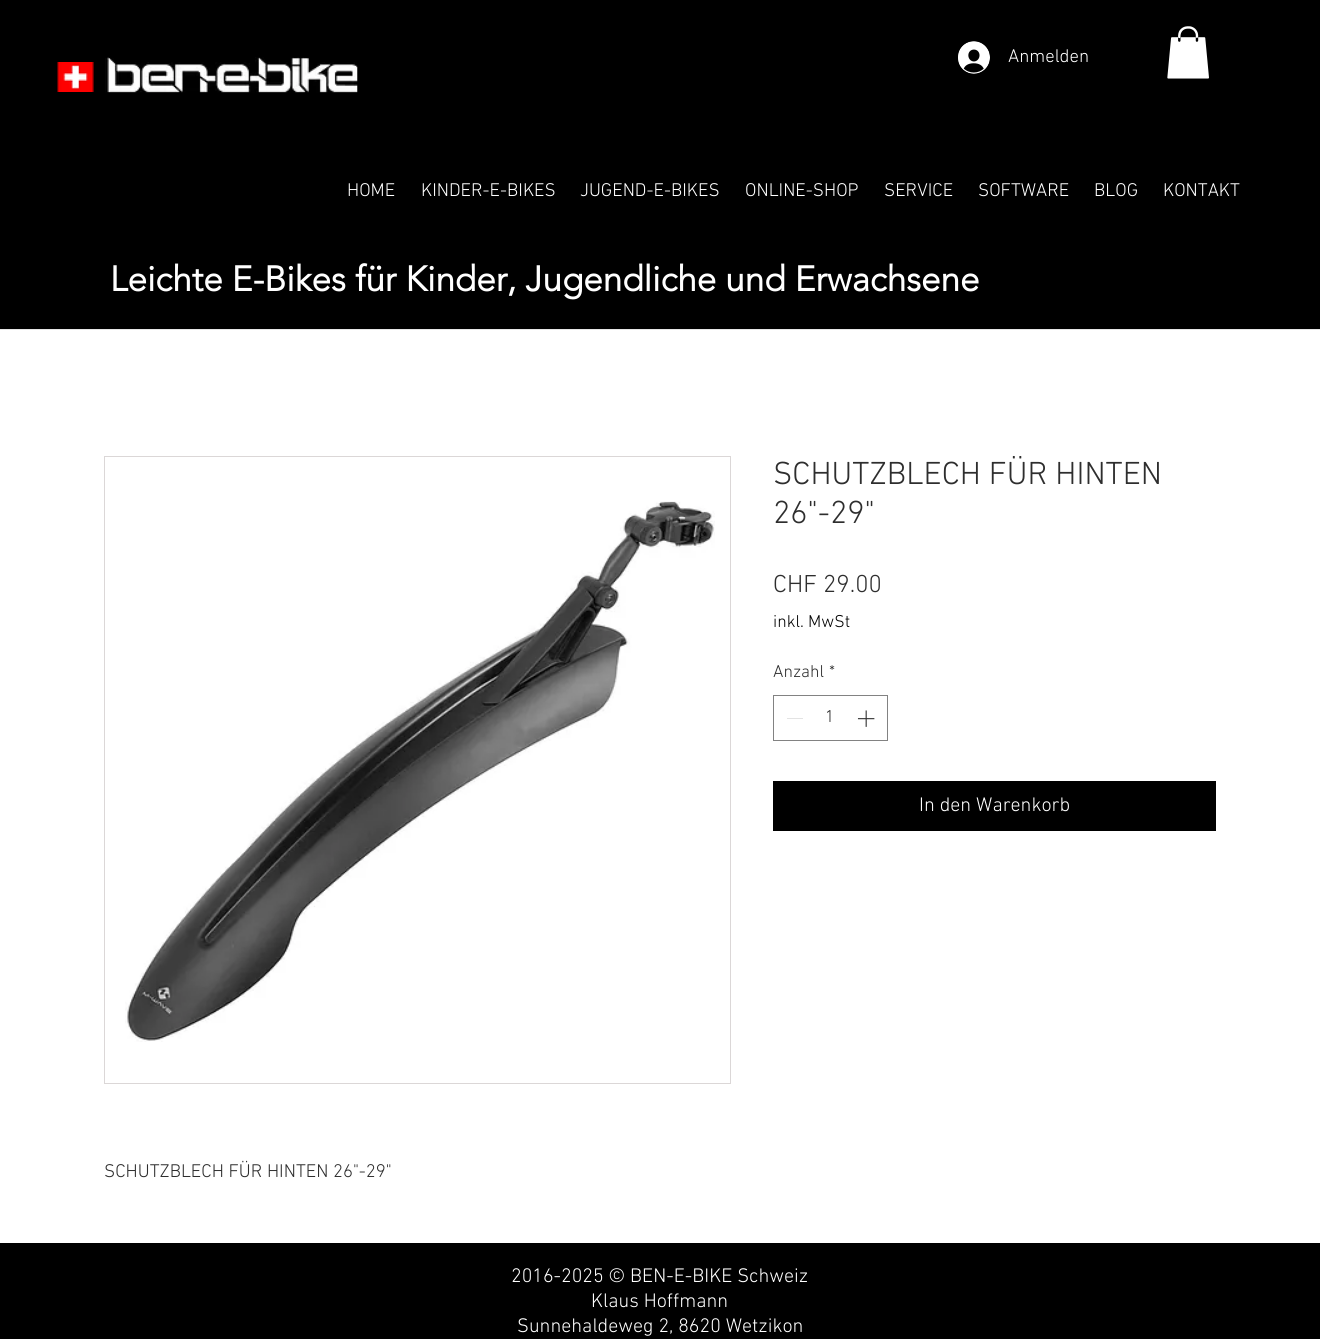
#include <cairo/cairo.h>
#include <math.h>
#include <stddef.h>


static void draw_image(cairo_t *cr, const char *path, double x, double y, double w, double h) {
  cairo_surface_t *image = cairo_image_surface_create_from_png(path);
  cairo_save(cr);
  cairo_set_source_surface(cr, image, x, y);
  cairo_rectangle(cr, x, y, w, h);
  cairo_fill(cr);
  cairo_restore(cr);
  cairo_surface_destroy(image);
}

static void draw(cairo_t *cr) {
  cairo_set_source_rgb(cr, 1, 1, 1);
  cairo_paint(cr);
  cairo_set_source_rgb(cr, 0, 0, 0);
  cairo_rectangle(cr, 0, 0, 1320, 329);
  cairo_fill(cr);
  cairo_set_source_rgb(cr, 230 / 255.0, 230 / 255.0, 230 / 255.0);
  cairo_rectangle(cr, 0, 329, 1320, 1);
  cairo_fill(cr);
  draw_image(cr, "images/1.png", 57, 62, 37, 30);
  draw_image(cr, "images/2.png", 105, 57, 253, 36);
  draw_image(cr, "images/3.png", 958, 41, 32, 33);
  draw_image(cr, "images/4.png", 1167, 26, 42, 53);
  cairo_rectangle(cr, 773.5, 695.5, 114, 45);
  cairo_set_source_rgb(cr, 130 / 255.0, 130 / 255.0, 130 / 255.0);
  cairo_set_line_width(cr, 1);
  cairo_stroke(cr);
  cairo_set_source_rgb(cr, 227 / 255.0, 227 / 255.0, 227 / 255.0);
  cairo_rectangle(cr, 787, 718, 16, 1);
  cairo_fill(cr);
  draw_image(cr, "images/5.png", 857, 710, 18, 17);
  cairo_set_source_rgb(cr, 0, 0, 0);
  cairo_rectangle(cr, 773, 781, 443, 50);
  cairo_fill(cr);
  cairo_rectangle(cr, 104.5, 456.5, 626, 627);
  cairo_set_source_rgb(cr, 219 / 255.0, 215 / 255.0, 215 / 255.0);
  cairo_stroke(cr);
  draw_image(cr, "images/6.png", 125, 501, 590, 541);
  cairo_set_source_rgb(cr, 0, 0, 0);
  cairo_rectangle(cr, 0, 1243, 1320, 96);
  cairo_fill(cr);
  cairo_select_font_face(cr, "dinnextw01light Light", CAIRO_FONT_SLANT_NORMAL, CAIRO_FONT_WEIGHT_NORMAL);
  cairo_set_font_size(cr, 18.75);
  cairo_set_source_rgb(cr, 1, 1, 1);
  cairo_move_to(cr, 1008, 62);
  cairo_show_text(cr, "Anmelden");
  cairo_move_to(cr, 347, 196);
  cairo_show_text(cr, "HOME");
  cairo_move_to(cr, 421, 196);
  cairo_show_text(cr, "KINDER-E-BIKES");
  cairo_move_to(cr, 580, 196);
  cairo_show_text(cr, "JUGEND-E-BIKES");
  cairo_move_to(cr, 745, 196);
  cairo_show_text(cr, "ONLINE-SHOP");
  cairo_move_to(cr, 884, 196);
  cairo_show_text(cr, "SERVICE");
  cairo_move_to(cr, 978, 196);
  cairo_show_text(cr, "SOFTWARE");
  cairo_move_to(cr, 1094, 196);
  cairo_show_text(cr, "BLOG");
  cairo_move_to(cr, 1163, 196);
  cairo_show_text(cr, "KONTAKT");
  cairo_select_font_face(cr, "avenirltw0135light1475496", CAIRO_FONT_SLANT_NORMAL, CAIRO_FONT_WEIGHT_BOLD);
  cairo_set_font_size(cr, 35);
  cairo_move_to(cr, 110, 291);
  cairo_show_text(cr, "Leichte E-Bikes für Kinder, Jugendliche und Erwachsene");
  cairo_select_font_face(cr, "dinnextw01light Light", CAIRO_FONT_SLANT_NORMAL, CAIRO_FONT_WEIGHT_NORMAL);
  cairo_set_font_size(cr, 32.5);
  cairo_set_source_rgb(cr, 46 / 255.0, 46 / 255.0, 46 / 255.0);
  cairo_move_to(cr, 773, 484);
  cairo_show_text(cr, "SCHUTZBLECH FÜR HINTEN");
  cairo_move_to(cr, 773, 523);
  cairo_show_text(cr, "26\"-29\"");
  cairo_set_font_size(cr, 25);
  cairo_move_to(cr, 773, 592);
  cairo_show_text(cr, "CHF 29.00");
  cairo_set_font_size(cr, 17.5);
  cairo_set_source_rgb(cr, 0, 0, 0);
  cairo_move_to(cr, 773, 627);
  cairo_show_text(cr, "inkl. MwSt");
  cairo_set_source_rgb(cr, 46 / 255.0, 46 / 255.0, 46 / 255.0);
  cairo_move_to(cr, 773, 677);
  cairo_show_text(cr, "Anzahl");
  cairo_move_to(cr, 829, 677);
  cairo_show_text(cr, "*");
  cairo_move_to(cr, 825, 722);
  cairo_show_text(cr, "1");
  cairo_set_font_size(cr, 20);
  cairo_set_source_rgb(cr, 1, 1, 1);
  cairo_move_to(cr, 919, 811);
  cairo_show_text(cr, "In den Warenkorb");
  cairo_set_font_size(cr, 18.75);
  cairo_set_source_rgb(cr, 46 / 255.0, 46 / 255.0, 46 / 255.0);
  cairo_move_to(cr, 104, 1177);
  cairo_show_text(cr, "SCHUTZBLECH FÜR HINTEN 26\"-29\"");
  cairo_set_font_size(cr, 20);
  cairo_set_source_rgb(cr, 1, 1, 1);
  cairo_move_to(cr, 511, 1282);
  cairo_show_text(cr, "2016-2025 © BEN-E-BIKE Schweiz");
  cairo_move_to(cr, 591, 1307);
  cairo_show_text(cr, "Klaus Hoffmann");
  cairo_move_to(cr, 517, 1332);
  cairo_show_text(cr, "Sunnehaldeweg 2, 8620 Wetzikon");
}

int main(void) {
  cairo_surface_t *surface = cairo_image_surface_create(CAIRO_FORMAT_RGB24, 1320, 1339);
  cairo_t *cr = cairo_create(surface);
  cairo_font_options_t *options = cairo_font_options_create();
  cairo_font_options_set_hint_metrics(options, CAIRO_HINT_METRICS_OFF);
  cairo_font_options_set_hint_style(options, CAIRO_HINT_STYLE_NONE);
  cairo_set_font_options(cr, options);
  cairo_set_miter_limit(cr, 4);
  draw(cr);
  cairo_surface_write_to_png(surface, "out.png");
  cairo_font_options_destroy(options);
  cairo_destroy(cr);
  cairo_surface_destroy(surface);
  return 0;
}
